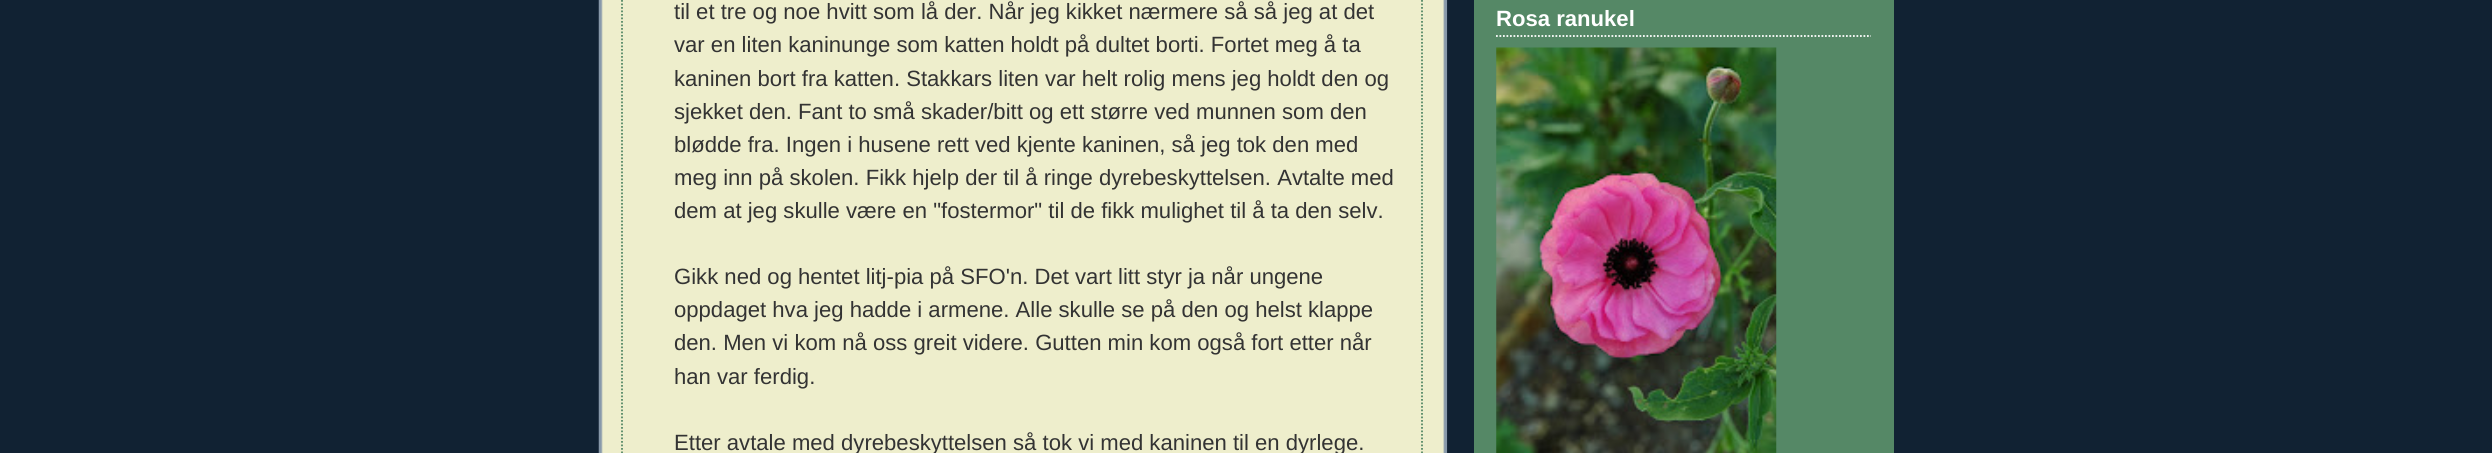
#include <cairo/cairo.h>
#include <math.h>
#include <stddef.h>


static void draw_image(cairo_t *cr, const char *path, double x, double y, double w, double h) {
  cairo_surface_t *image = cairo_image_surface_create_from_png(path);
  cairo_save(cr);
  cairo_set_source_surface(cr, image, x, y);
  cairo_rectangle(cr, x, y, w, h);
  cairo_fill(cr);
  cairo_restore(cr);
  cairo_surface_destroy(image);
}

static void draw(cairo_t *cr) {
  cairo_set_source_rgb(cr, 17 / 255.0, 34 / 255.0, 51 / 255.0);
  cairo_paint(cr);
  cairo_set_source_rgb(cr, 238 / 255.0, 238 / 255.0, 204 / 255.0);
  cairo_rectangle(cr, 601, 0, 844, 453);
  cairo_fill(cr);
  draw_image(cr, "images/1.png", 598, 0, 850, 453);
  cairo_new_path(cr);
  cairo_move_to(cr, 1422, -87.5);
  cairo_line_to(cr, 1422, 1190);
  cairo_set_source_rgb(cr, 85 / 255.0, 136 / 255.0, 102 / 255.0);
  cairo_set_line_width(cr, 1.8);
  cairo_set_dash(cr, (double[]){1.75, 1.75}, 2, 0);
  cairo_stroke(cr);
  cairo_new_path(cr);
  cairo_move_to(cr, 622, -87.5);
  cairo_line_to(cr, 622, 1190);
  cairo_stroke(cr);
  cairo_rectangle(cr, 1474, 0, 420, 453);
  cairo_fill(cr);
  cairo_new_path(cr);
  cairo_move_to(cr, 1496, 36);
  cairo_line_to(cr, 1871, 36);
  cairo_set_source_rgb(cr, 1, 1, 1);
  cairo_stroke(cr);
  draw_image(cr, "images/2.png", 1496, 47, 281, 406);
  cairo_select_font_face(cr, "Liberation Sans", CAIRO_FONT_SLANT_NORMAL, CAIRO_FONT_WEIGHT_NORMAL);
  cairo_set_font_size(cr, 22.1);
  cairo_set_source_rgb(cr, 51 / 255.0, 51 / 255.0, 51 / 255.0);
  cairo_move_to(cr, 674, 19);
  cairo_show_text(cr, "til et tre og noe hvitt som lå der. Når jeg kikket nærmere så så jeg at det");
  cairo_move_to(cr, 674, 52);
  cairo_show_text(cr, "var en liten kaninunge som katten holdt på dultet borti. Fortet meg å ta");
  cairo_move_to(cr, 674, 86);
  cairo_show_text(cr, "kaninen bort fra katten. Stakkars liten var helt rolig mens jeg holdt den og");
  cairo_move_to(cr, 674, 119);
  cairo_show_text(cr, "sjekket den. Fant to små skader/bitt og ett større ved munnen som den");
  cairo_move_to(cr, 674, 152);
  cairo_show_text(cr, "blødde fra. Ingen i husene rett ved kjente kaninen, så jeg tok den med");
  cairo_move_to(cr, 674, 185);
  cairo_show_text(cr, "meg inn på skolen. Fikk hjelp der til å ringe dyrebeskyttelsen. Avtalte med");
  cairo_move_to(cr, 674, 218);
  cairo_show_text(cr, "dem at jeg skulle være en \"fostermor\" til de fikk mulighet til å ta den selv.");
  cairo_move_to(cr, 674, 284);
  cairo_show_text(cr, "Gikk ned og hentet litj-pia på SFO'n. Det vart litt styr ja når ungene");
  cairo_move_to(cr, 674, 317);
  cairo_show_text(cr, "oppdaget hva jeg hadde i armene. Alle skulle se på den og helst klappe");
  cairo_move_to(cr, 674, 350);
  cairo_show_text(cr, "den. Men vi kom nå oss greit videre. Gutten min kom også fort etter når");
  cairo_move_to(cr, 674, 384);
  cairo_show_text(cr, "han var ferdig.");
  cairo_move_to(cr, 674, 450);
  cairo_show_text(cr, "Etter avtale med dyrebeskyttelsen så tok vi med kaninen til en dyrlege.");
  cairo_select_font_face(cr, "Liberation Sans", CAIRO_FONT_SLANT_NORMAL, CAIRO_FONT_WEIGHT_BOLD);
  cairo_set_source_rgb(cr, 1, 1, 1);
  cairo_move_to(cr, 1496, 26);
  cairo_show_text(cr, "Rosa ranukel");
}

int main(void) {
  cairo_surface_t *surface = cairo_image_surface_create(CAIRO_FORMAT_RGB24, 2492, 453);
  cairo_t *cr = cairo_create(surface);
  cairo_font_options_t *options = cairo_font_options_create();
  cairo_font_options_set_hint_metrics(options, CAIRO_HINT_METRICS_OFF);
  cairo_font_options_set_hint_style(options, CAIRO_HINT_STYLE_NONE);
  cairo_set_font_options(cr, options);
  cairo_set_miter_limit(cr, 4);
  draw(cr);
  cairo_surface_write_to_png(surface, "out.png");
  cairo_font_options_destroy(options);
  cairo_destroy(cr);
  cairo_surface_destroy(surface);
  return 0;
}
